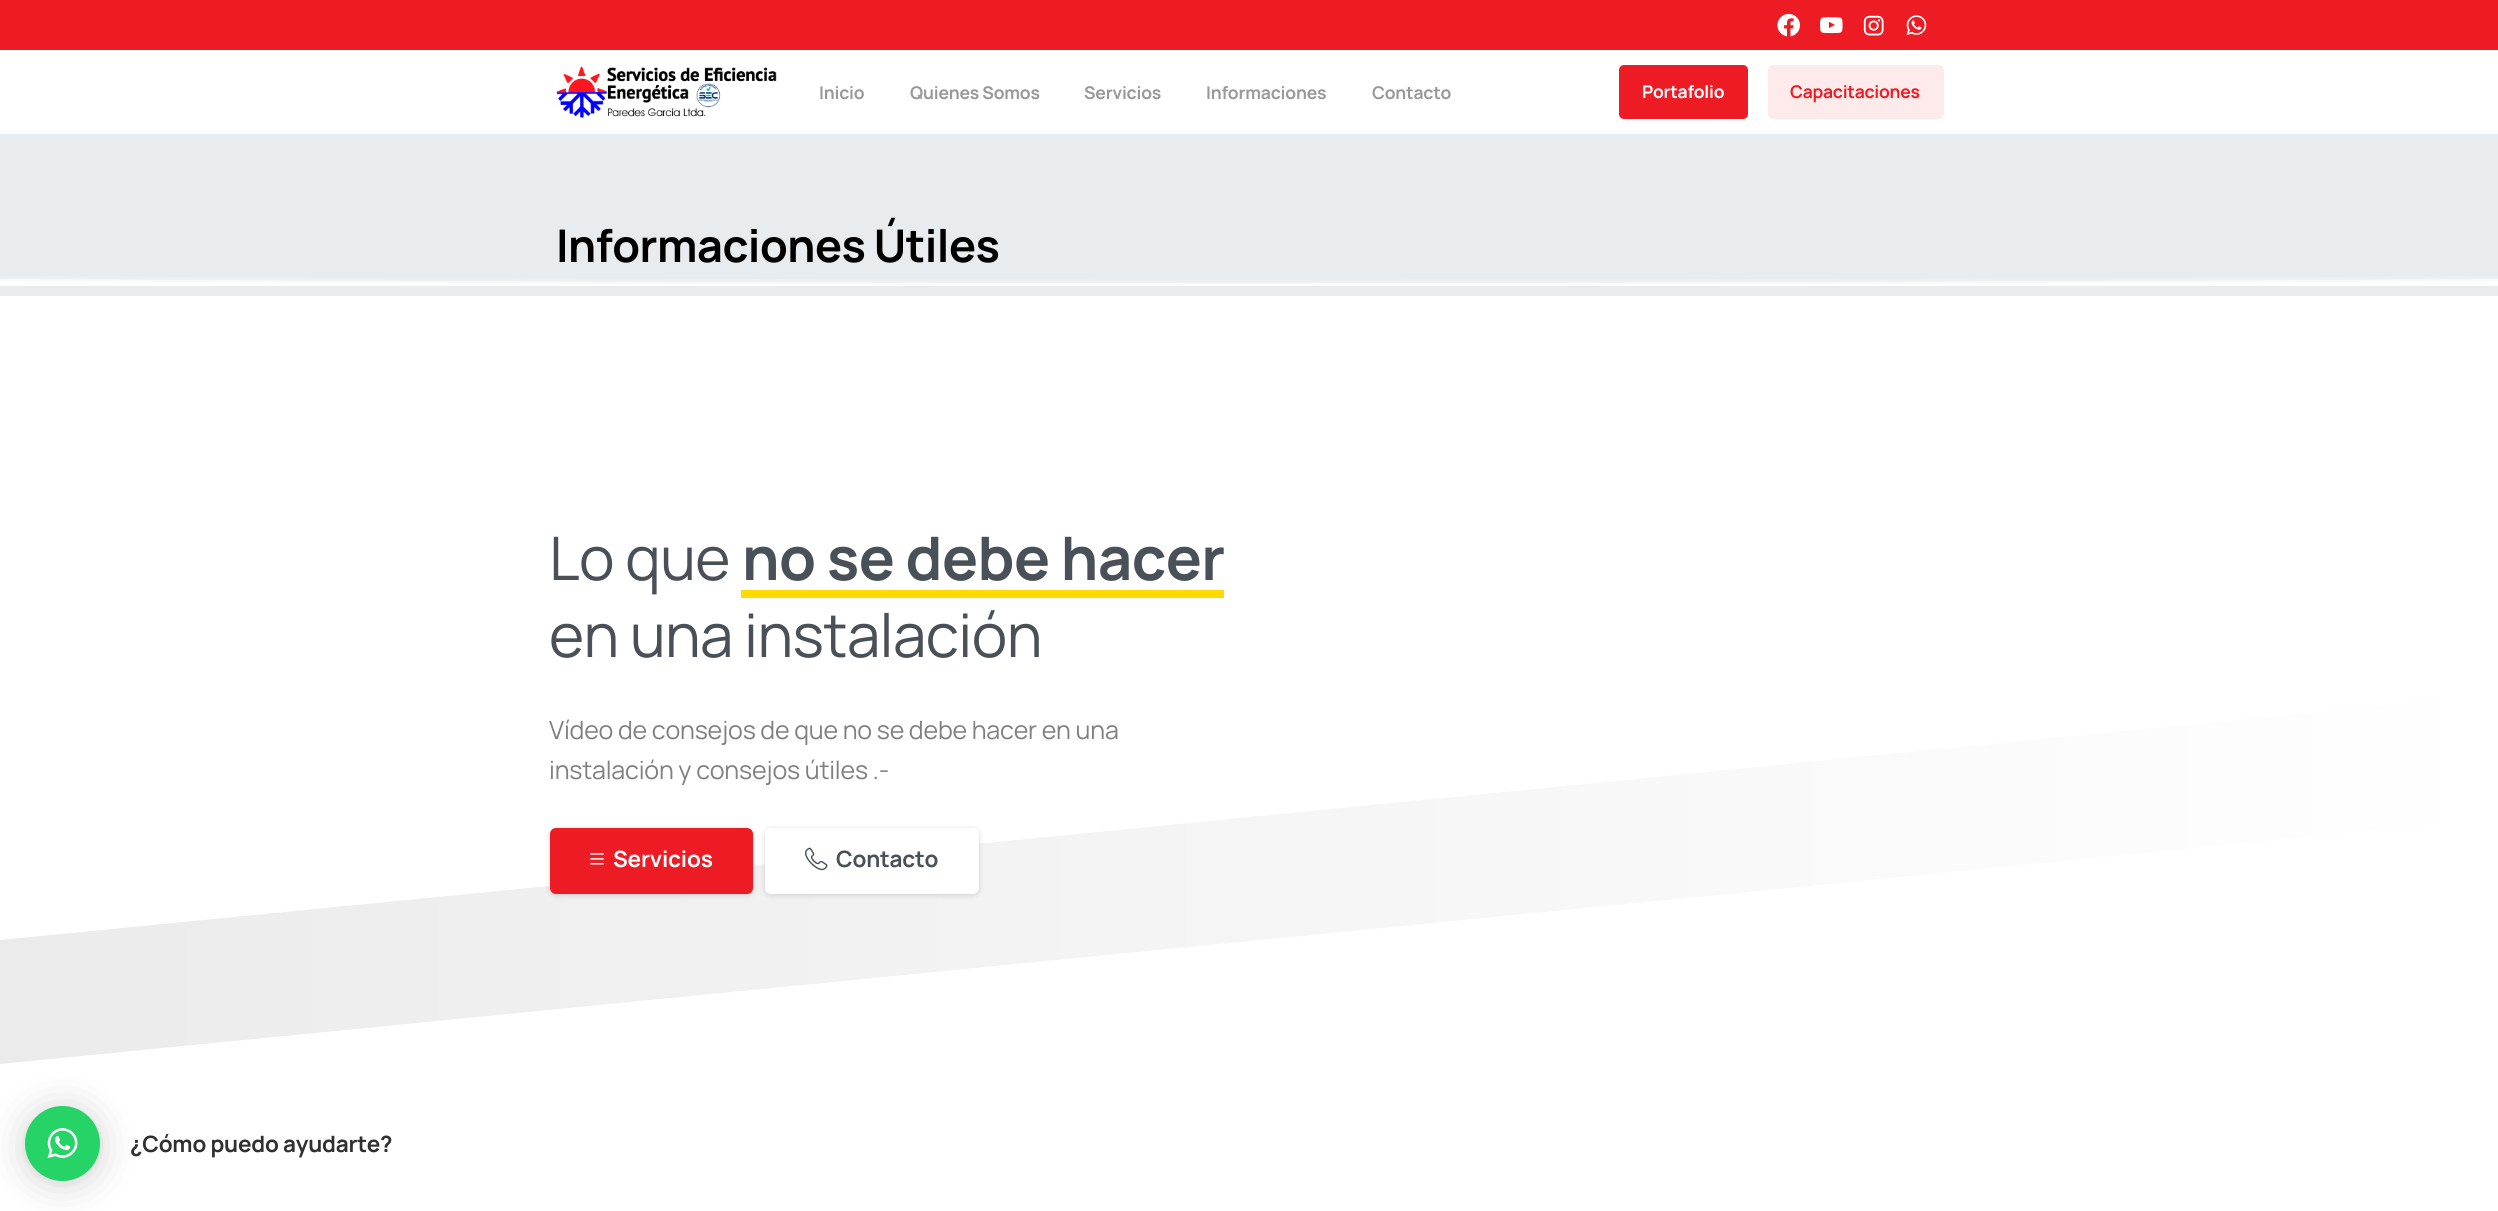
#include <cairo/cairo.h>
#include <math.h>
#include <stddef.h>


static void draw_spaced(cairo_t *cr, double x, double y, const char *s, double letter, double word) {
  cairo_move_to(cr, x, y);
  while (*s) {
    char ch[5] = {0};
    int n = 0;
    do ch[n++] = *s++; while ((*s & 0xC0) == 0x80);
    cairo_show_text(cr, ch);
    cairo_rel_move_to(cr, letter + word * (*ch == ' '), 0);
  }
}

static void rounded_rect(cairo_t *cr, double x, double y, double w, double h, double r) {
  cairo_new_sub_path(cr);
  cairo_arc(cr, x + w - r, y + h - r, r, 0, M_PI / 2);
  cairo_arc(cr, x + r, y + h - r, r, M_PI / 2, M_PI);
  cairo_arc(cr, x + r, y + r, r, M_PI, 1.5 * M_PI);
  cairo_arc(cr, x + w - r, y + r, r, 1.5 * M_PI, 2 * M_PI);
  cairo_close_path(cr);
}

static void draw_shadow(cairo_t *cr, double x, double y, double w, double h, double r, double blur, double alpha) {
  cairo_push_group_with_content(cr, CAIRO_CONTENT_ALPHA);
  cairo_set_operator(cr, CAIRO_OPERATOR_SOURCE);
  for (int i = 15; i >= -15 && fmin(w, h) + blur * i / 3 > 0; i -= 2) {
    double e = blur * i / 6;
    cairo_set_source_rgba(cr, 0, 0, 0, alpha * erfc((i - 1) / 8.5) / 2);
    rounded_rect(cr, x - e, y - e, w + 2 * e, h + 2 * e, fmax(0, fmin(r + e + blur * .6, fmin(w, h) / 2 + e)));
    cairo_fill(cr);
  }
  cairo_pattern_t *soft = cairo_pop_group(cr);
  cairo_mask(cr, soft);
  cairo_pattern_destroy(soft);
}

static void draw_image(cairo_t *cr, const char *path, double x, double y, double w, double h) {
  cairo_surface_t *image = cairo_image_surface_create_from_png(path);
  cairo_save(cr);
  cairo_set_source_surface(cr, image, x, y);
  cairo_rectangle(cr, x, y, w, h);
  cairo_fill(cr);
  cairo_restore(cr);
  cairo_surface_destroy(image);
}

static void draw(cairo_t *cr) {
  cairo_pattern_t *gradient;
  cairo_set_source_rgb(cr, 233 / 255.0, 236 / 255.0, 239 / 255.0);
  cairo_paint(cr);
  cairo_set_source_rgb(cr, 237 / 255.0, 28 / 255.0, 36 / 255.0);
  cairo_rectangle(cr, 0, 0, 2498, 50);
  cairo_fill(cr);
  draw_image(cr, "images/1.png", 1777, 13, 23, 24);
  draw_image(cr, "images/2.png", 1820, 17, 23, 17);
  draw_image(cr, "images/3.png", 1863, 15, 21, 21);
  draw_image(cr, "images/4.png", 1906, 15, 21, 20);
  cairo_set_source_rgb(cr, 1, 1, 1);
  cairo_rectangle(cr, 0, 50, 2498, 84);
  cairo_fill(cr);
  draw_image(cr, "images/5.png", 556, 66, 221, 52);
  cairo_set_source_rgb(cr, 237 / 255.0, 28 / 255.0, 36 / 255.0);
  rounded_rect(cr, 1619, 65, 129, 54, 5);
  cairo_fill(cr);
  cairo_set_source_rgb(cr, 253 / 255.0, 235 / 255.0, 236 / 255.0);
  rounded_rect(cr, 1768, 65, 176, 54, 5);
  cairo_fill(cr);
  cairo_set_source_rgb(cr, 237 / 255.0, 240 / 255.0, 242 / 255.0);
  cairo_new_path(cr);
  cairo_move_to(cr, 0, 286);
  cairo_line_to(cr, 0, 276);
  cairo_curve_to(cr, 833, 281, 1666, 281, 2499, 276);
  cairo_line_to(cr, 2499, 286);
  cairo_close_path(cr);
  cairo_fill(cr);
  cairo_set_source_rgb(cr, 248 / 255.0, 249 / 255.0, 250 / 255.0);
  cairo_new_path(cr);
  cairo_move_to(cr, 0, 286);
  cairo_line_to(cr, 0, 279);
  cairo_curve_to(cr, 833, 284, 1666, 284, 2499, 279);
  cairo_line_to(cr, 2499, 286);
  cairo_close_path(cr);
  cairo_fill(cr);
  cairo_set_source_rgb(cr, 1, 1, 1);
  cairo_new_path(cr);
  cairo_move_to(cr, 0, 286);
  cairo_line_to(cr, 0, 281);
  cairo_curve_to(cr, 833, 286, 1666, 286, 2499, 281);
  cairo_line_to(cr, 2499, 286);
  cairo_close_path(cr);
  cairo_fill(cr);
  cairo_rectangle(cr, 0, 296, 2498, 915);
  cairo_fill(cr);
  cairo_set_source_rgb(cr, 1, 217 / 255.0, 0);
  cairo_rectangle(cr, 741, 590, 483, 8);
  cairo_fill(cr);
  cairo_save(cr);
  cairo_rectangle(cr, 0, 695, 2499, 375);
  cairo_clip(cr);
  gradient = cairo_pattern_create_linear(0, 694, 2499, 694);
  cairo_pattern_add_color_stop_rgba(gradient, 0, 235 / 255.0, 235 / 255.0, 235 / 255.0, 1);
  cairo_pattern_add_color_stop_rgba(gradient, 1, 1, 1, 1, 1);
  cairo_set_source(cr, gradient);
  cairo_pattern_destroy(gradient);
  cairo_new_path(cr);
  cairo_move_to(cr, 0, 940);
  cairo_line_to(cr, 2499, 694);
  cairo_line_to(cr, 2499, 1069);
  cairo_line_to(cr, 0, 1069);
  cairo_close_path(cr);
  cairo_fill(cr);
  cairo_restore(cr);
  cairo_set_source_rgb(cr, 1, 1, 1);
  cairo_new_path(cr);
  cairo_move_to(cr, 0, 1064);
  cairo_line_to(cr, 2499, 818);
  cairo_line_to(cr, 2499, 1070);
  cairo_line_to(cr, 0, 1070);
  cairo_close_path(cr);
  cairo_fill(cr);
  cairo_set_source_rgb(cr, 0, 0, 0);
  draw_shadow(cr, 550, 829, 203, 66, 6, 3, 0.15);
  cairo_set_source_rgb(cr, 237 / 255.0, 28 / 255.0, 36 / 255.0);
  rounded_rect(cr, 550, 828, 203, 66, 6);
  cairo_fill(cr);
  draw_image(cr, "images/6.png", 590, 853, 14, 12);
  cairo_set_source_rgb(cr, 0, 0, 0);
  draw_shadow(cr, 765, 829, 214, 66, 6, 3, 0.15);
  cairo_set_source_rgb(cr, 1, 1, 1);
  rounded_rect(cr, 765, 828, 214, 66, 6);
  cairo_fill(cr);
  draw_image(cr, "images/7.png", 805, 847, 23, 24);
  cairo_set_source_rgb(cr, 0, 0, 0);
  draw_shadow(cr, 25, 1109, 75, 75, 37.5, 20, 0.16);
  draw_shadow(cr, 25, 1108, 75, 75, 37.5, 4, 0.06);
  cairo_set_source_rgb(cr, 37 / 255.0, 211 / 255.0, 102 / 255.0);
  cairo_arc(cr, 62.5, 1143.5, 37.5, 0, 2 * M_PI);
  cairo_fill(cr);
  draw_image(cr, "images/8.png", 47, 1128, 31, 31);
  cairo_select_font_face(cr, "Manrope", CAIRO_FONT_SLANT_NORMAL, CAIRO_FONT_WEIGHT_BOLD);
  cairo_set_font_size(cr, 17.5);
  cairo_set_source_rgb(cr, 153 / 255.0, 153 / 255.0, 153 / 255.0);
  draw_spaced(cr, 819, 99, "Inicio", -0.2, 0);
  draw_spaced(cr, 910, 99, "Quienes Somos", -0.2, 0);
  draw_spaced(cr, 1084, 99, "Servicios", -0.2, 0);
  draw_spaced(cr, 1206, 99, "Informaciones", -0.2, 0);
  draw_spaced(cr, 1372, 99, "Contacto", -0.2, 0);
  cairo_set_source_rgb(cr, 1, 1, 1);
  draw_spaced(cr, 1642, 98, "Portafolio", -0.25, 0);
  cairo_set_source_rgb(cr, 237 / 255.0, 28 / 255.0, 36 / 255.0);
  draw_spaced(cr, 1790, 98, "Capacitaciones", -0.25, 0);
  cairo_set_font_size(cr, 45);
  cairo_set_source_rgb(cr, 0, 0, 0);
  draw_spaced(cr, 556, 262, "Informaciones Útiles", -0.5, 0);
  cairo_select_font_face(cr, "Manrope", CAIRO_FONT_SLANT_NORMAL, CAIRO_FONT_WEIGHT_NORMAL);
  cairo_set_font_size(cr, 60);
  cairo_set_source_rgb(cr, 73 / 255.0, 80 / 255.0, 87 / 255.0);
  draw_spaced(cr, 549, 580, "Lo que", -0.6, 0);
  cairo_select_font_face(cr, "Manrope", CAIRO_FONT_SLANT_NORMAL, CAIRO_FONT_WEIGHT_BOLD);
  draw_spaced(cr, 742, 580, "no se debe hacer", -0.6, 0);
  cairo_select_font_face(cr, "Manrope", CAIRO_FONT_SLANT_NORMAL, CAIRO_FONT_WEIGHT_NORMAL);
  draw_spaced(cr, 549, 657, "en una instalación", -0.6, 0);
  cairo_set_font_size(cr, 25);
  cairo_set_source_rgb(cr, 128 / 255.0, 128 / 255.0, 128 / 255.0);
  draw_spaced(cr, 549, 739, "Vídeo de consejos de que no se debe hacer en una", -0.2, 0);
  draw_spaced(cr, 549, 779, "instalación y consejos útiles .-", -0.2, 0);
  cairo_select_font_face(cr, "Manrope", CAIRO_FONT_SLANT_NORMAL, CAIRO_FONT_WEIGHT_BOLD);
  cairo_set_font_size(cr, 22.5);
  cairo_set_source_rgb(cr, 1, 1, 1);
  draw_spaced(cr, 613, 867, "Servicios", -0.2, 0);
  cairo_set_source_rgb(cr, 73 / 255.0, 80 / 255.0, 87 / 255.0);
  draw_spaced(cr, 836, 867, "Contacto", -0.2, 0);
  cairo_set_source_rgb(cr, 48 / 255.0, 48 / 255.0, 48 / 255.0);
  draw_spaced(cr, 130, 1152, "¿Cómo puedo ayudarte?", -0.2, 0);
}

int main(void) {
  cairo_surface_t *surface = cairo_image_surface_create(CAIRO_FORMAT_RGB24, 2498, 1211);
  cairo_t *cr = cairo_create(surface);
  cairo_font_options_t *options = cairo_font_options_create();
  cairo_font_options_set_hint_metrics(options, CAIRO_HINT_METRICS_OFF);
  cairo_font_options_set_hint_style(options, CAIRO_HINT_STYLE_NONE);
  cairo_set_font_options(cr, options);
  cairo_set_miter_limit(cr, 4);
  draw(cr);
  cairo_surface_write_to_png(surface, "out.png");
  cairo_font_options_destroy(options);
  cairo_destroy(cr);
  cairo_surface_destroy(surface);
  return 0;
}
